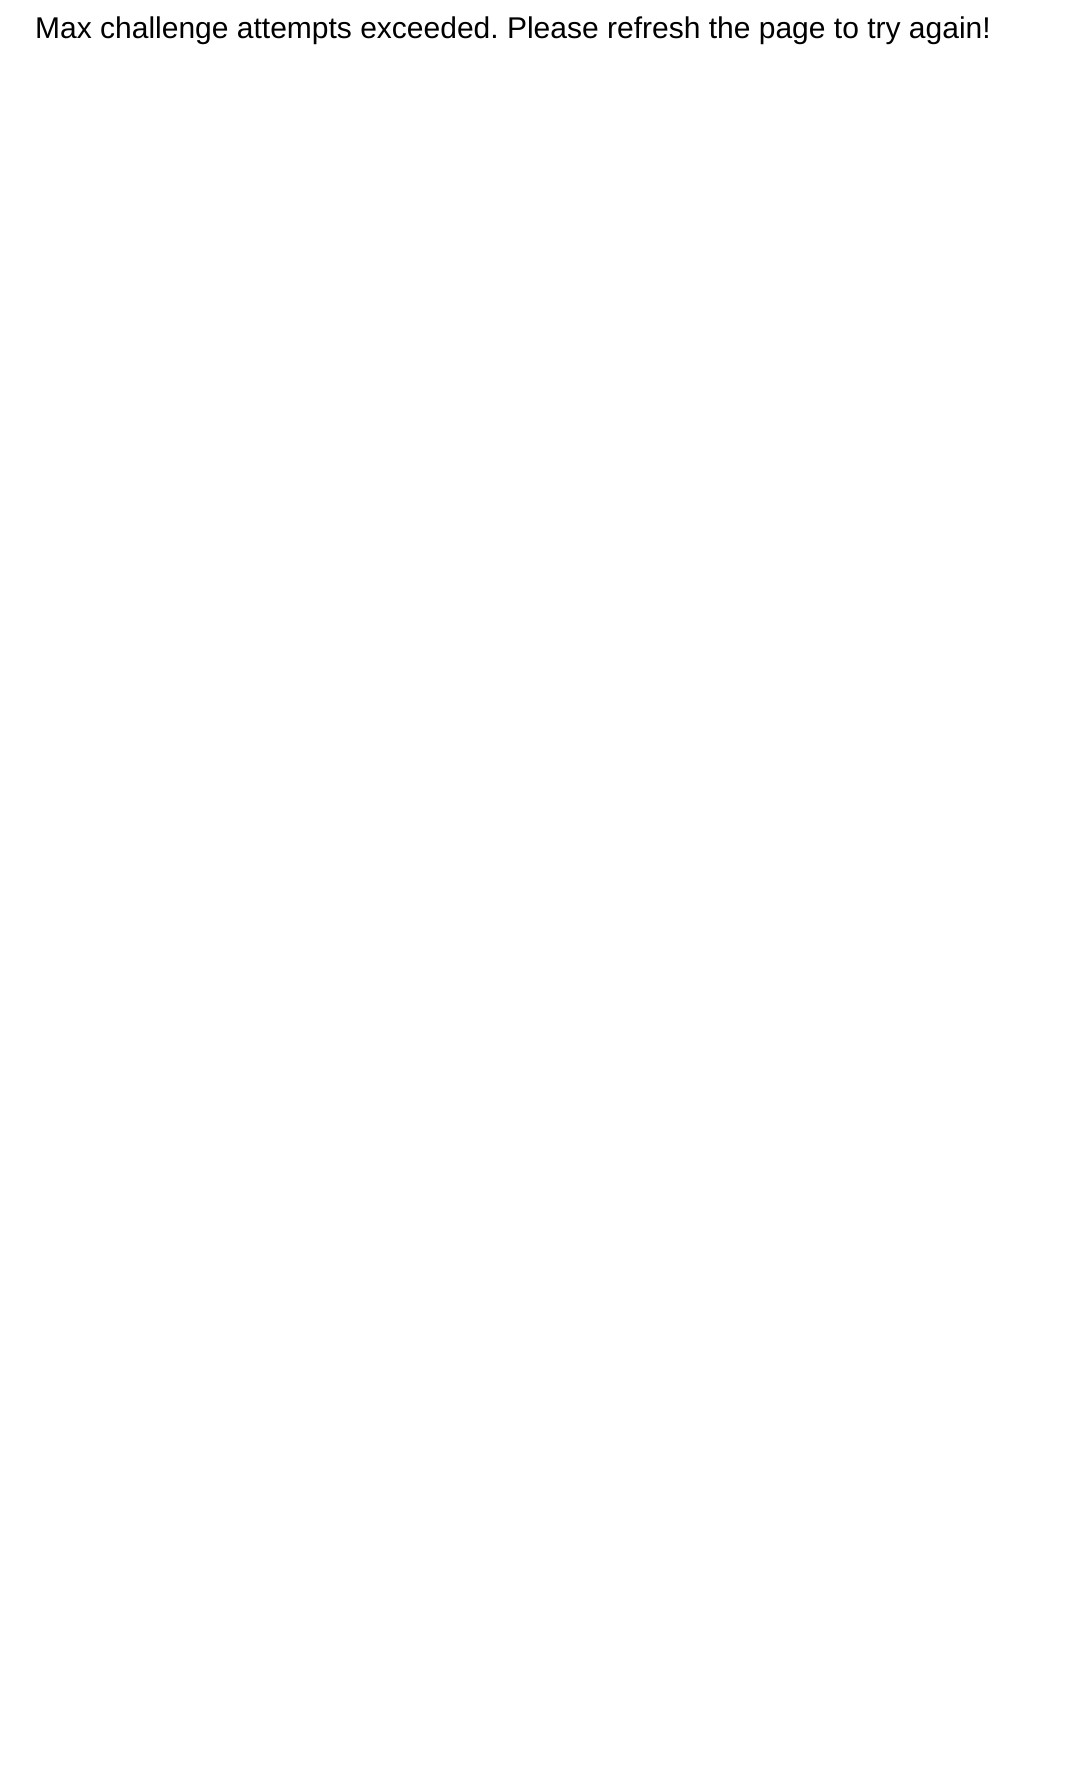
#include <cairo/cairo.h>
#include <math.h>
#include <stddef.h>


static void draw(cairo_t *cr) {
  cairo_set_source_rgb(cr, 1, 1, 1);
  cairo_paint(cr);
  cairo_select_font_face(cr, "Liberation Sans", CAIRO_FONT_SLANT_NORMAL, CAIRO_FONT_WEIGHT_NORMAL);
  cairo_set_font_size(cr, 30);
  cairo_set_source_rgb(cr, 0, 0, 0);
  cairo_move_to(cr, 35, 38);
  cairo_show_text(cr, "Max challenge attempts exceeded. Please refresh the page to try again!");
}

int main(void) {
  cairo_surface_t *surface = cairo_image_surface_create(CAIRO_FORMAT_RGB24, 1081, 1785);
  cairo_t *cr = cairo_create(surface);
  cairo_font_options_t *options = cairo_font_options_create();
  cairo_font_options_set_hint_metrics(options, CAIRO_HINT_METRICS_OFF);
  cairo_font_options_set_hint_style(options, CAIRO_HINT_STYLE_NONE);
  cairo_set_font_options(cr, options);
  cairo_set_miter_limit(cr, 4);
  draw(cr);
  cairo_surface_write_to_png(surface, "out.png");
  cairo_font_options_destroy(options);
  cairo_destroy(cr);
  cairo_surface_destroy(surface);
  return 0;
}
